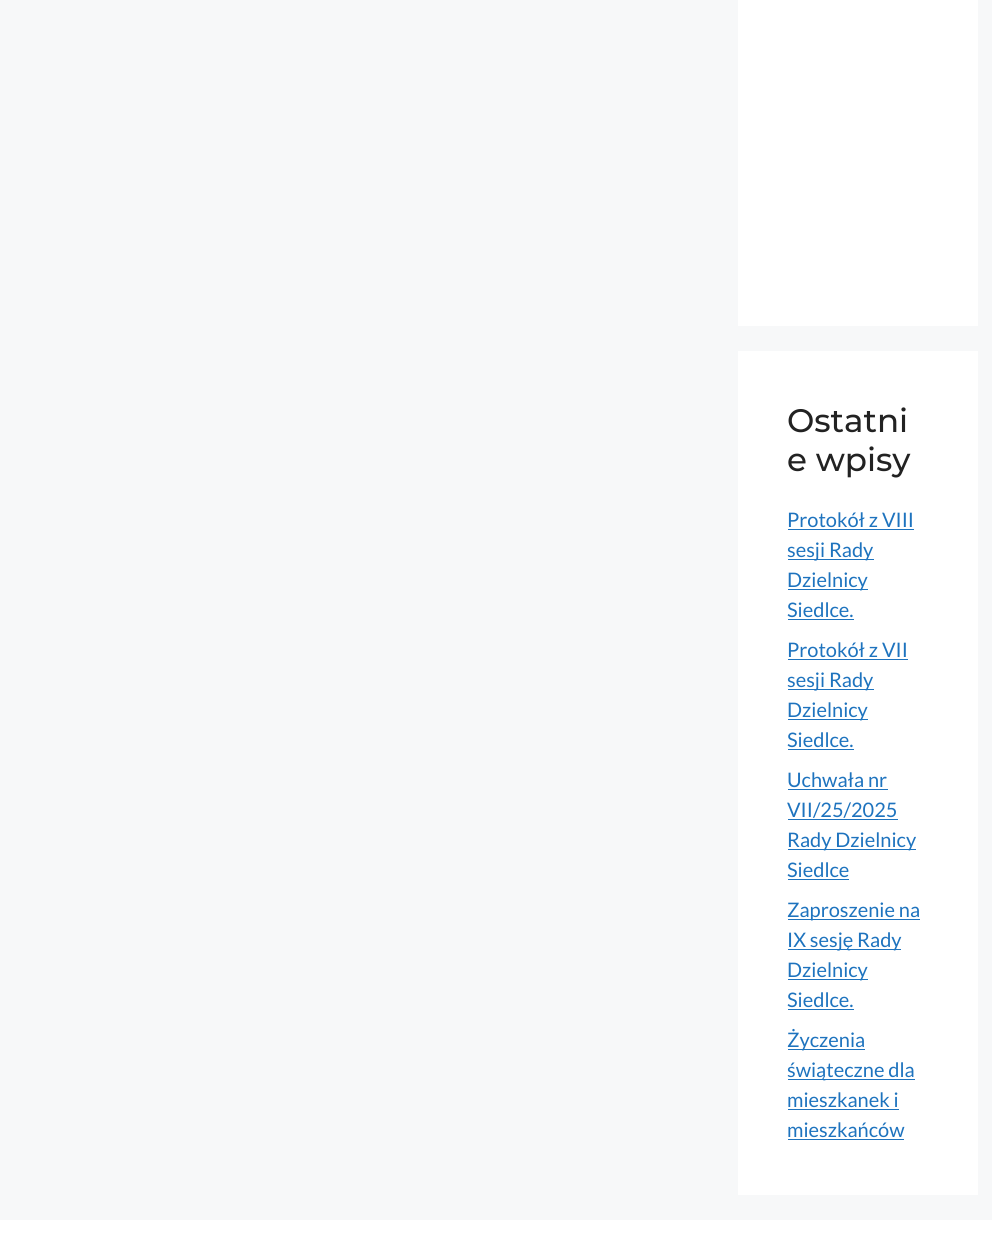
#include <cairo/cairo.h>
#include <math.h>
#include <stddef.h>


static void draw(cairo_t *cr) {
  cairo_set_source_rgb(cr, 247 / 255.0, 248 / 255.0, 249 / 255.0);
  cairo_paint(cr);
  cairo_set_source_rgb(cr, 1, 1, 1);
  cairo_rectangle(cr, 738, 0, 240, 326);
  cairo_fill(cr);
  cairo_rectangle(cr, 738, 351, 240, 844);
  cairo_fill(cr);
  cairo_set_source_rgb(cr, 30 / 255.0, 115 / 255.0, 190 / 255.0);
  cairo_rectangle(cr, 788, 529, 126, 1);
  cairo_fill(cr);
  cairo_rectangle(cr, 788, 559, 86, 1);
  cairo_fill(cr);
  cairo_rectangle(cr, 788, 589, 80, 1);
  cairo_fill(cr);
  cairo_rectangle(cr, 788, 619, 66, 1);
  cairo_fill(cr);
  cairo_rectangle(cr, 788, 659, 120, 1);
  cairo_fill(cr);
  cairo_rectangle(cr, 788, 689, 86, 1);
  cairo_fill(cr);
  cairo_rectangle(cr, 788, 719, 80, 1);
  cairo_fill(cr);
  cairo_rectangle(cr, 788, 749, 66, 1);
  cairo_fill(cr);
  cairo_rectangle(cr, 788, 789, 100, 1);
  cairo_fill(cr);
  cairo_rectangle(cr, 788, 819, 110, 1);
  cairo_fill(cr);
  cairo_rectangle(cr, 788, 849, 128, 1);
  cairo_fill(cr);
  cairo_rectangle(cr, 788, 879, 61, 1);
  cairo_fill(cr);
  cairo_rectangle(cr, 788, 919, 132, 1);
  cairo_fill(cr);
  cairo_rectangle(cr, 788, 949, 113, 1);
  cairo_fill(cr);
  cairo_rectangle(cr, 788, 979, 80, 1);
  cairo_fill(cr);
  cairo_rectangle(cr, 788, 1009, 66, 1);
  cairo_fill(cr);
  cairo_rectangle(cr, 788, 1049, 77, 1);
  cairo_fill(cr);
  cairo_rectangle(cr, 788, 1079, 127, 1);
  cairo_fill(cr);
  cairo_rectangle(cr, 788, 1109, 111, 1);
  cairo_fill(cr);
  cairo_rectangle(cr, 788, 1139, 116, 1);
  cairo_fill(cr);
  cairo_set_source_rgb(cr, 1, 1, 1);
  cairo_rectangle(cr, 0, 1220, 992, 17);
  cairo_fill(cr);
  cairo_select_font_face(cr, "Montserrat Medium", CAIRO_FONT_SLANT_NORMAL, CAIRO_FONT_WEIGHT_NORMAL);
  cairo_set_font_size(cr, 32.5);
  cairo_set_source_rgb(cr, 34 / 255.0, 34 / 255.0, 34 / 255.0);
  cairo_move_to(cr, 787, 432);
  cairo_show_text(cr, "Ostatni");
  cairo_move_to(cr, 787, 471);
  cairo_show_text(cr, "e wpisy");
  cairo_select_font_face(cr, "Lato", CAIRO_FONT_SLANT_NORMAL, CAIRO_FONT_WEIGHT_NORMAL);
  cairo_set_font_size(cr, 20);
  cairo_set_source_rgb(cr, 30 / 255.0, 115 / 255.0, 190 / 255.0);
  cairo_move_to(cr, 787, 527);
  cairo_show_text(cr, "Protokół z VIII");
  cairo_move_to(cr, 787, 557);
  cairo_show_text(cr, "sesji Rady");
  cairo_move_to(cr, 787, 587);
  cairo_show_text(cr, "Dzielnicy");
  cairo_move_to(cr, 787, 617);
  cairo_show_text(cr, "Siedlce.");
  cairo_move_to(cr, 787, 657);
  cairo_show_text(cr, "Protokół z VII");
  cairo_move_to(cr, 787, 687);
  cairo_show_text(cr, "sesji Rady");
  cairo_move_to(cr, 787, 717);
  cairo_show_text(cr, "Dzielnicy");
  cairo_move_to(cr, 787, 747);
  cairo_show_text(cr, "Siedlce.");
  cairo_move_to(cr, 787, 787);
  cairo_show_text(cr, "Uchwała nr");
  cairo_move_to(cr, 787, 817);
  cairo_show_text(cr, "VII/25/2025");
  cairo_move_to(cr, 787, 847);
  cairo_show_text(cr, "Rady Dzielnicy");
  cairo_move_to(cr, 787, 877);
  cairo_show_text(cr, "Siedlce");
  cairo_move_to(cr, 787, 917);
  cairo_show_text(cr, "Zaproszenie na");
  cairo_move_to(cr, 787, 947);
  cairo_show_text(cr, "IX sesję Rady");
  cairo_move_to(cr, 787, 977);
  cairo_show_text(cr, "Dzielnicy");
  cairo_move_to(cr, 787, 1007);
  cairo_show_text(cr, "Siedlce.");
  cairo_move_to(cr, 787, 1047);
  cairo_show_text(cr, "Życzenia");
  cairo_move_to(cr, 787, 1077);
  cairo_show_text(cr, "świąteczne dla");
  cairo_move_to(cr, 787, 1107);
  cairo_show_text(cr, "mieszkanek i");
  cairo_move_to(cr, 787, 1137);
  cairo_show_text(cr, "mieszkańców");
}

int main(void) {
  cairo_surface_t *surface = cairo_image_surface_create(CAIRO_FORMAT_RGB24, 992, 1237);
  cairo_t *cr = cairo_create(surface);
  cairo_font_options_t *options = cairo_font_options_create();
  cairo_font_options_set_hint_metrics(options, CAIRO_HINT_METRICS_OFF);
  cairo_font_options_set_hint_style(options, CAIRO_HINT_STYLE_NONE);
  cairo_set_font_options(cr, options);
  cairo_set_miter_limit(cr, 4);
  draw(cr);
  cairo_surface_write_to_png(surface, "out.png");
  cairo_font_options_destroy(options);
  cairo_destroy(cr);
  cairo_surface_destroy(surface);
  return 0;
}
